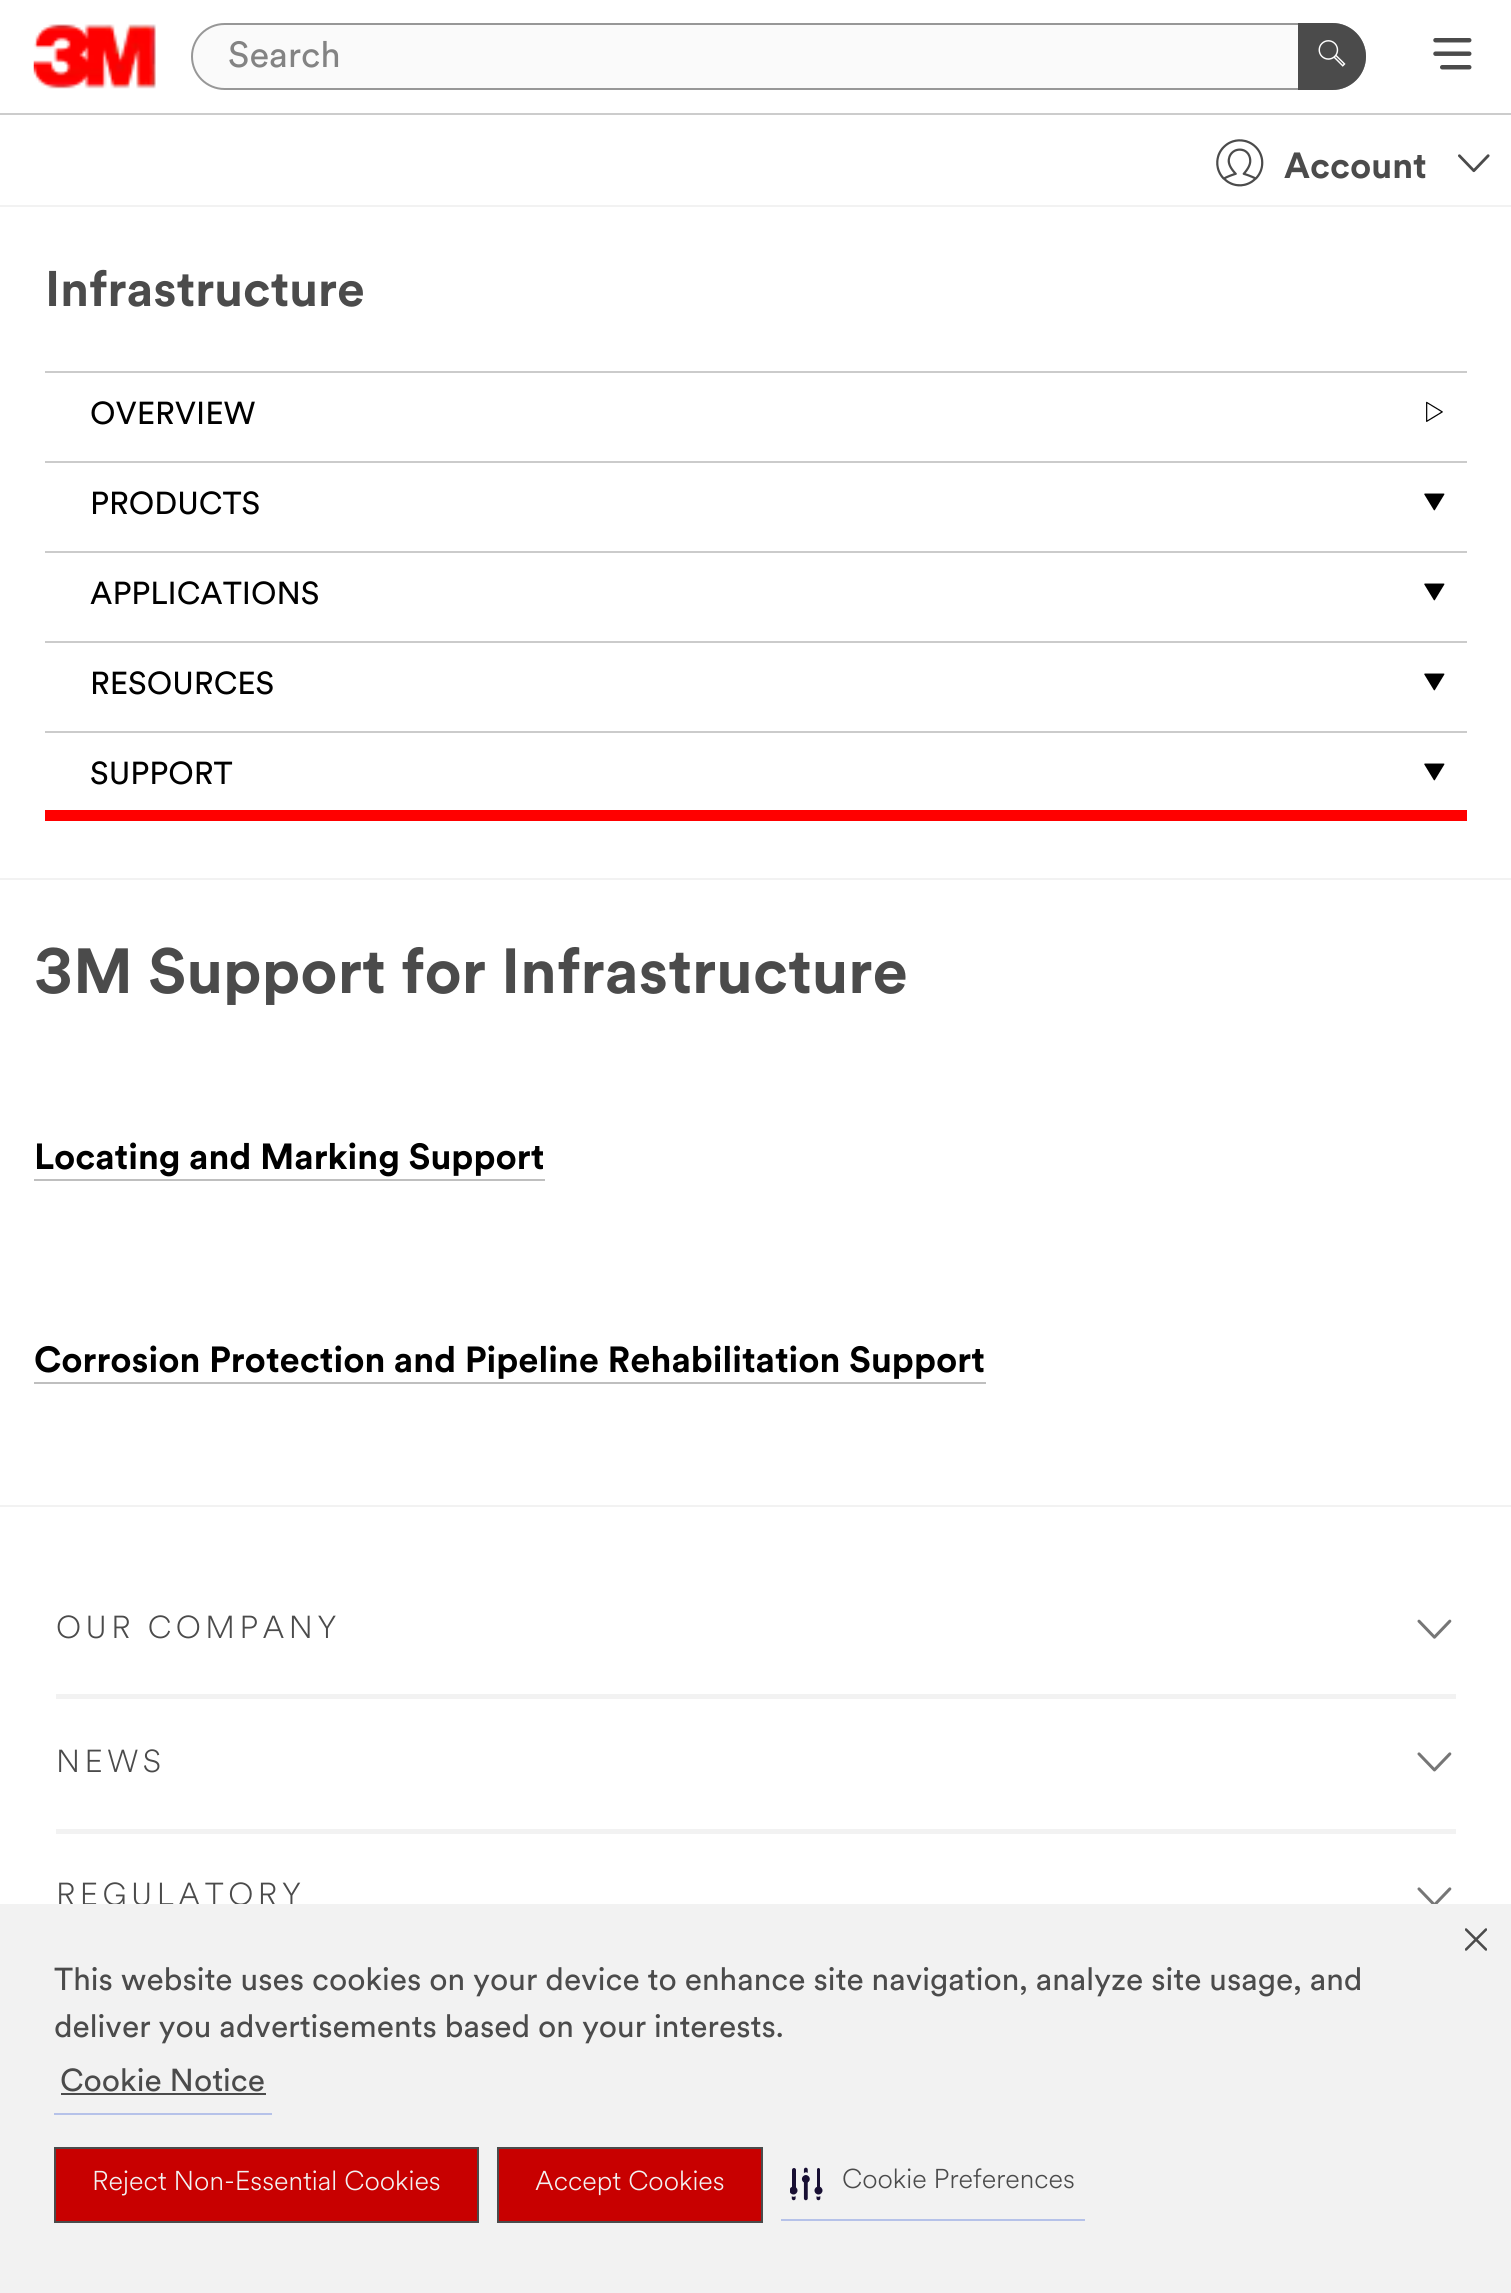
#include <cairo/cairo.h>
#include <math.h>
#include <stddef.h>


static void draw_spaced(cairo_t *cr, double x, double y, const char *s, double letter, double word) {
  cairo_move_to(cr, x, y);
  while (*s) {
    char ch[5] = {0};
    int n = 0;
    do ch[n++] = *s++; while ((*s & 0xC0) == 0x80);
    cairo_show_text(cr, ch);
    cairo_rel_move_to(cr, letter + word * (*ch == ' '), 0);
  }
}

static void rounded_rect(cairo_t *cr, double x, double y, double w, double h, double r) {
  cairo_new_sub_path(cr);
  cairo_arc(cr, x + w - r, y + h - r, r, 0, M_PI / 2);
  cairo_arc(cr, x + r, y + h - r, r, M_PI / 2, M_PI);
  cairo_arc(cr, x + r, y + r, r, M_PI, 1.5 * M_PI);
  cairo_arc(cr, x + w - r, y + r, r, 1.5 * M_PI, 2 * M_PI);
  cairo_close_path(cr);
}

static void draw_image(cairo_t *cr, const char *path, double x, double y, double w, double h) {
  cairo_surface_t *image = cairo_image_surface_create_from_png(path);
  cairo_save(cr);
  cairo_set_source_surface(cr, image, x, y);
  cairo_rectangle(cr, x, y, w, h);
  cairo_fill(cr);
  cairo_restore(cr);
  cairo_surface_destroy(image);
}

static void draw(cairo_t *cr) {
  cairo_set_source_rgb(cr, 1, 1, 1);
  cairo_paint(cr);
  cairo_set_source_rgb(cr, 242 / 255.0, 242 / 255.0, 242 / 255.0);
  cairo_rectangle(cr, 0, 205, 1511, 2);
  cairo_fill(cr);
  draw_image(cr, "images/1.png", 33, 24, 123, 65);
  cairo_set_source_rgb(cr, 250 / 255.0, 250 / 255.0, 250 / 255.0);
  rounded_rect(cr, 192, 24, 1173, 65, 32.5);
  cairo_fill_preserve(cr);
  cairo_set_source_rgb(cr, 151 / 255.0, 151 / 255.0, 151 / 255.0);
  cairo_stroke(cr);
  cairo_set_source_rgb(cr, 75 / 255.0, 75 / 255.0, 75 / 255.0);
  cairo_new_path(cr);
  cairo_move_to(cr, 1298, 23);
  cairo_line_to(cr, 1332.5, 23);
  cairo_curve_to(cr, 1351, 23, 1366, 38, 1366, 56.5);
  cairo_curve_to(cr, 1366, 75, 1351, 90, 1332.5, 90);
  cairo_line_to(cr, 1298, 90);
  cairo_close_path(cr);
  cairo_fill(cr);
  draw_image(cr, "images/2.png", 1318, 40, 28, 27);
  draw_image(cr, "images/3.png", 1433, 38, 39, 32);
  cairo_set_source_rgb(cr, 204 / 255.0, 204 / 255.0, 204 / 255.0);
  cairo_rectangle(cr, 0, 113, 1511, 2);
  cairo_fill(cr);
  draw_image(cr, "images/4.png", 1216, 139, 48, 48);
  draw_image(cr, "images/5.png", 1458, 154, 32, 19);
  cairo_set_source_rgb(cr, 242 / 255.0, 242 / 255.0, 242 / 255.0);
  cairo_rectangle(cr, 0, 878, 1511, 2);
  cairo_fill(cr);
  cairo_set_source_rgb(cr, 203 / 255.0, 203 / 255.0, 203 / 255.0);
  cairo_rectangle(cr, 45, 371, 1422, 2);
  cairo_fill(cr);
  draw_image(cr, "images/6.png", 1426, 401, 17, 21);
  cairo_rectangle(cr, 45, 461, 1422, 2);
  cairo_fill(cr);
  draw_image(cr, "images/7.png", 1424, 493, 21, 18);
  cairo_rectangle(cr, 45, 551, 1422, 2);
  cairo_fill(cr);
  draw_image(cr, "images/7.png", 1424, 583, 21, 18);
  cairo_rectangle(cr, 45, 641, 1422, 2);
  cairo_fill(cr);
  draw_image(cr, "images/7.png", 1424, 673, 21, 18);
  cairo_set_source_rgb(cr, 1, 0, 0);
  cairo_rectangle(cr, 45, 810, 1422, 11);
  cairo_fill(cr);
  cairo_set_source_rgb(cr, 203 / 255.0, 203 / 255.0, 203 / 255.0);
  cairo_rectangle(cr, 45, 731, 1422, 2);
  cairo_fill(cr);
  draw_image(cr, "images/7.png", 1424, 763, 21, 18);
  cairo_set_source_rgb(cr, 191 / 255.0, 191 / 255.0, 191 / 255.0);
  cairo_rectangle(cr, 34, 1179, 511, 2);
  cairo_fill(cr);
  cairo_rectangle(cr, 34, 1382, 952, 2);
  cairo_fill(cr);
  cairo_set_source_rgb(cr, 242 / 255.0, 242 / 255.0, 242 / 255.0);
  cairo_rectangle(cr, 0, 1505, 1511, 2);
  cairo_fill(cr);
  cairo_rectangle(cr, 56, 1694, 1400, 5);
  cairo_fill(cr);
  draw_image(cr, "images/8.png", 1417, 1619, 35, 20);
  cairo_rectangle(cr, 56, 1829, 1400, 5);
  cairo_fill(cr);
  draw_image(cr, "images/9.png", 1417, 1752, 35, 20);
  draw_image(cr, "images/10.png", 1417, 1887, 35, 17);
  cairo_select_font_face(cr, "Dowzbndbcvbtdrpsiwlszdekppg", CAIRO_FONT_SLANT_NORMAL, CAIRO_FONT_WEIGHT_NORMAL);
  cairo_set_font_size(cr, 36);
  cairo_set_source_rgb(cr, 131 / 255.0, 131 / 255.0, 131 / 255.0);
  cairo_move_to(cr, 228, 67);
  cairo_show_text(cr, "Search");
  cairo_select_font_face(cr, "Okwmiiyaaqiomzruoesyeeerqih", CAIRO_FONT_SLANT_NORMAL, CAIRO_FONT_WEIGHT_BOLD);
  cairo_set_source_rgb(cr, 75 / 255.0, 75 / 255.0, 75 / 255.0);
  cairo_move_to(cr, 1284, 178);
  cairo_show_text(cr, "Account");
  cairo_set_font_size(cr, 49.5);
  cairo_move_to(cr, 45, 306);
  cairo_show_text(cr, "Infrastructure");
  cairo_select_font_face(cr, "Dowzbndbcvbtdrpsiwlszdekppg", CAIRO_FONT_SLANT_NORMAL, CAIRO_FONT_WEIGHT_NORMAL);
  cairo_set_font_size(cr, 31.5);
  cairo_set_source_rgb(cr, 0, 0, 0);
  cairo_move_to(cr, 90, 424);
  cairo_show_text(cr, "OVERVIEW");
  cairo_move_to(cr, 90, 514);
  cairo_show_text(cr, "PRODUCTS");
  cairo_move_to(cr, 90, 604);
  cairo_show_text(cr, "APPLICATIONS");
  cairo_move_to(cr, 90, 694);
  cairo_show_text(cr, "RESOURCES");
  cairo_move_to(cr, 90, 784);
  cairo_show_text(cr, "SUPPORT");
  cairo_select_font_face(cr, "Okwmiiyaaqiomzruoesyeeerqih", CAIRO_FONT_SLANT_NORMAL, CAIRO_FONT_WEIGHT_BOLD);
  cairo_set_font_size(cr, 63);
  cairo_set_source_rgb(cr, 75 / 255.0, 75 / 255.0, 75 / 255.0);
  cairo_move_to(cr, 34, 993);
  cairo_show_text(cr, "3M Support for Infrastructure");
  cairo_set_font_size(cr, 36);
  cairo_set_source_rgb(cr, 0, 0, 0);
  cairo_move_to(cr, 34, 1169);
  cairo_show_text(cr, "Locating and Marking Support");
  cairo_move_to(cr, 34, 1372);
  cairo_show_text(cr, "Corrosion Protection and Pipeline Rehabilitation Support");
  cairo_select_font_face(cr, "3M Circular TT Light", CAIRO_FONT_SLANT_NORMAL, CAIRO_FONT_WEIGHT_NORMAL);
  cairo_set_font_size(cr, 31.5);
  cairo_set_source_rgb(cr, 75 / 255.0, 75 / 255.0, 75 / 255.0);
  draw_spaced(cr, 56, 1638, "OUR COMPANY", 4.5, 0);
  draw_spaced(cr, 56, 1772, "NEWS", 4.5, 0);
  draw_spaced(cr, 56, 1905, "REGULATORY", 4.5, 0);
  cairo_set_source_rgb(cr, 242 / 255.0, 242 / 255.0, 242 / 255.0);
  cairo_rectangle(cr, 0, 1904, 1511, 389);
  cairo_fill(cr);
  cairo_select_font_face(cr, "Dowzbndbcvbtdrpsiwlszdekppg", CAIRO_FONT_SLANT_NORMAL, CAIRO_FONT_WEIGHT_NORMAL);
  cairo_set_source_rgb(cr, 75 / 255.0, 75 / 255.0, 75 / 255.0);
  cairo_move_to(cr, 54, 1990);
  cairo_show_text(cr, "This website uses cookies on your device to enhance site navigation, analyze site usage, and");
  cairo_move_to(cr, 54, 2037);
  cairo_show_text(cr, "deliver you advertisements based on your interests.");
  cairo_set_source_rgb(cr, 182 / 255.0, 194 / 255.0, 233 / 255.0);
  cairo_rectangle(cr, 54, 2113, 218, 2);
  cairo_fill(cr);
  cairo_set_source_rgb(cr, 75 / 255.0, 75 / 255.0, 75 / 255.0);
  cairo_move_to(cr, 60, 2091);
  cairo_show_text(cr, "Cookie Notice");
  cairo_rectangle(cr, 61, 2093, 205, 2);
  cairo_fill(cr);
  draw_image(cr, "images/11.png", 1465, 1928, 22, 23);
  cairo_set_source_rgb(cr, 200 / 255.0, 0, 0);
  cairo_rectangle(cr, 55, 2148, 423, 74);
  cairo_fill_preserve(cr);
  cairo_set_source_rgb(cr, 75 / 255.0, 75 / 255.0, 75 / 255.0);
  cairo_stroke(cr);
  cairo_select_font_face(cr, "3M Circular TT Light", CAIRO_FONT_SLANT_NORMAL, CAIRO_FONT_WEIGHT_NORMAL);
  cairo_set_font_size(cr, 27);
  cairo_set_source_rgb(cr, 242 / 255.0, 242 / 255.0, 242 / 255.0);
  cairo_move_to(cr, 92, 2190);
  cairo_show_text(cr, "Reject Non-Essential Cookies");
  cairo_set_source_rgb(cr, 200 / 255.0, 0, 0);
  cairo_rectangle(cr, 498, 2148, 264, 74);
  cairo_fill_preserve(cr);
  cairo_set_source_rgb(cr, 75 / 255.0, 75 / 255.0, 75 / 255.0);
  cairo_stroke(cr);
  cairo_set_source_rgb(cr, 242 / 255.0, 242 / 255.0, 242 / 255.0);
  cairo_move_to(cr, 535, 2190);
  cairo_show_text(cr, "Accept Cookies");
  cairo_set_source_rgb(cr, 182 / 255.0, 194 / 255.0, 233 / 255.0);
  cairo_rectangle(cr, 781, 2219, 304, 2);
  cairo_fill(cr);
  draw_image(cr, "images/12.png", 790, 2167, 33, 34);
  cairo_set_source_rgb(cr, 75 / 255.0, 75 / 255.0, 75 / 255.0);
  cairo_move_to(cr, 842, 2188);
  cairo_show_text(cr, "Cookie Preferences");
}

int main(void) {
  cairo_surface_t *surface = cairo_image_surface_create(CAIRO_FORMAT_RGB24, 1511, 2293);
  cairo_t *cr = cairo_create(surface);
  cairo_font_options_t *options = cairo_font_options_create();
  cairo_font_options_set_hint_metrics(options, CAIRO_HINT_METRICS_OFF);
  cairo_font_options_set_hint_style(options, CAIRO_HINT_STYLE_NONE);
  cairo_set_font_options(cr, options);
  cairo_set_miter_limit(cr, 4);
  draw(cr);
  cairo_surface_write_to_png(surface, "out.png");
  cairo_font_options_destroy(options);
  cairo_destroy(cr);
  cairo_surface_destroy(surface);
  return 0;
}
